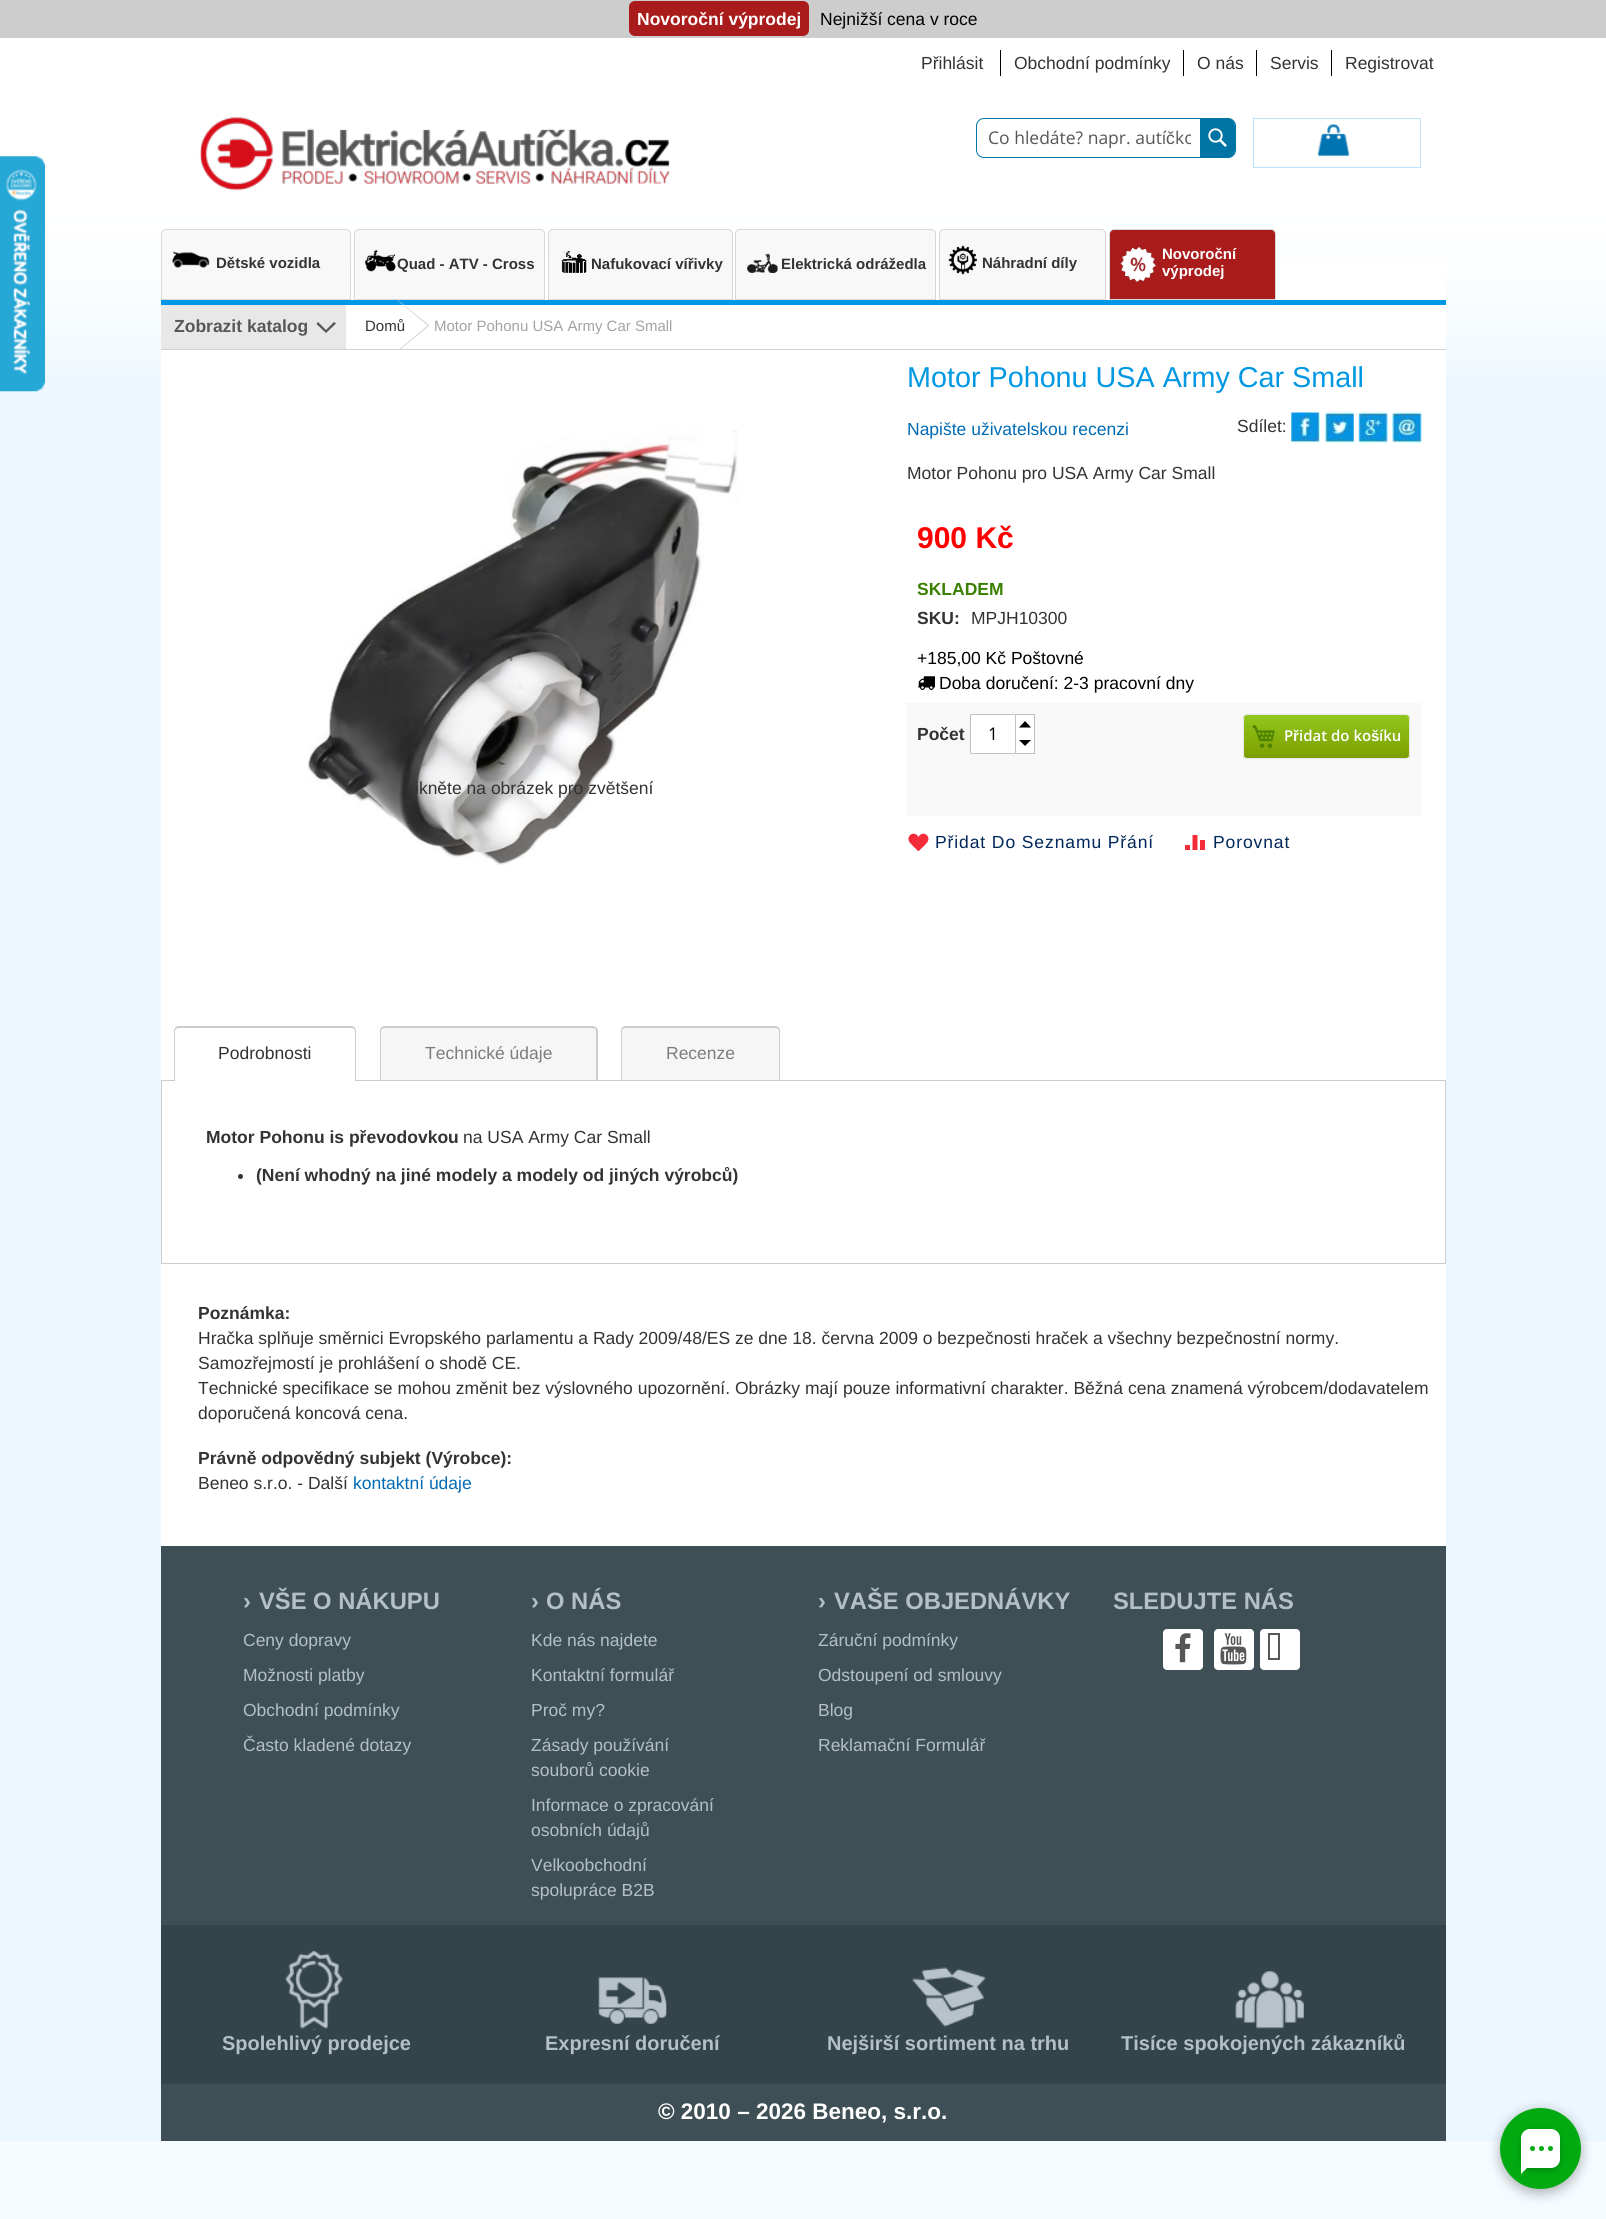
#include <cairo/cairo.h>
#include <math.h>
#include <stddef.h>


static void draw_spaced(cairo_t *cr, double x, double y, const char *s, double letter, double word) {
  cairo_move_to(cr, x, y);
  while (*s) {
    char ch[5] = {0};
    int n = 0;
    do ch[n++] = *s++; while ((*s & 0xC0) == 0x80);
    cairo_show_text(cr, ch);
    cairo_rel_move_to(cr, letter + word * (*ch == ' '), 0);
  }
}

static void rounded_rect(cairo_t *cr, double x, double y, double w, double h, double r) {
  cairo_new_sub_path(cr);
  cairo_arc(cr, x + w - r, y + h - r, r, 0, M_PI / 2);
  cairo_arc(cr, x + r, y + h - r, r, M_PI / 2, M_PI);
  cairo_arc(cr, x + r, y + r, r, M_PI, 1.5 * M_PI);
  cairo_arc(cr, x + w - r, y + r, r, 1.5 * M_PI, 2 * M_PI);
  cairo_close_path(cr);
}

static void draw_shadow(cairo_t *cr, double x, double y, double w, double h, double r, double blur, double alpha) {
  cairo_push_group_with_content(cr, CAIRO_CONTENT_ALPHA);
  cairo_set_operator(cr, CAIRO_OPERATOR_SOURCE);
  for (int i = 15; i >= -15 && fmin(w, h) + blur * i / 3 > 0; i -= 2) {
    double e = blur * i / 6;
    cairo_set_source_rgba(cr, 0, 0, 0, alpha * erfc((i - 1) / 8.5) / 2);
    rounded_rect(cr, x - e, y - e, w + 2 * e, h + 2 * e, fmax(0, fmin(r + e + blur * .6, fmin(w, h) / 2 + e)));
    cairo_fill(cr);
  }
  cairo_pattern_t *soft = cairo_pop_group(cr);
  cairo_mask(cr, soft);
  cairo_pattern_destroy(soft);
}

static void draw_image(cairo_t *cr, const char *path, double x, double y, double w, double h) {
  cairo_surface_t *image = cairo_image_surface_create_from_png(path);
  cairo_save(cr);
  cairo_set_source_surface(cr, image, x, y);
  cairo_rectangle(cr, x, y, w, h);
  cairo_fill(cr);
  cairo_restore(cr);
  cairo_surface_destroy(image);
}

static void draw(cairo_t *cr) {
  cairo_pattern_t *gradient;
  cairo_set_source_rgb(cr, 245 / 255.0, 251 / 255.0, 1);
  cairo_paint(cr);
  cairo_set_source_rgb(cr, 236 / 255.0, 247 / 255.0, 1);
  cairo_rectangle(cr, 0, 196, 1606, 1945);
  cairo_fill(cr);
  draw_image(cr, "images/1.png", 45, 196, 1561, 141);
  draw_image(cr, "images/2.png", 0, 38, 1606, 338);
  cairo_set_source_rgb(cr, 206 / 255.0, 205 / 255.0, 205 / 255.0);
  cairo_rectangle(cr, 0, 0, 1606, 38);
  cairo_fill(cr);
  cairo_set_source_rgb(cr, 170 / 255.0, 27 / 255.0, 27 / 255.0);
  rounded_rect(cr, 629, 1, 180, 35, 6);
  cairo_fill(cr);
  draw_image(cr, "images/3.png", 0, 156, 45, 236);
  cairo_set_source_rgb(cr, 1, 1, 1);
  cairo_rectangle(cr, 161, 259, 1285, 1287);
  cairo_fill(cr);
  cairo_set_source_rgb(cr, 0, 0, 0);
  cairo_rectangle(cr, 1000, 50, 1, 26);
  cairo_fill(cr);
  cairo_rectangle(cr, 1183, 50, 1, 26);
  cairo_fill(cr);
  cairo_rectangle(cr, 1256, 50, 1, 26);
  cairo_fill(cr);
  cairo_rectangle(cr, 1331, 50, 1, 26);
  cairo_fill(cr);
  draw_image(cr, "images/4.png", 199, 117, 471, 74);
  rounded_rect(cr, 976.5, 118.5, 259, 39, 7.5);
  cairo_set_source_rgb(cr, 0, 117 / 255.0, 165 / 255.0);
  cairo_set_line_width(cr, 1);
  cairo_stroke(cr);
  cairo_new_path(cr);
  cairo_move_to(cr, 1200, 118);
  cairo_line_to(cr, 1227, 118);
  cairo_curve_to(cr, 1231.5, 118, 1235, 121.5, 1235, 126);
  cairo_line_to(cr, 1235, 150);
  cairo_curve_to(cr, 1235, 154.5, 1231.5, 158, 1227, 158);
  cairo_line_to(cr, 1200, 158);
  cairo_close_path(cr);
  cairo_fill(cr);
  draw_image(cr, "images/5.png", 1208, 128, 19, 19);
  cairo_rectangle(cr, 1253.5, 118.5, 167, 49);
  cairo_set_source_rgb(cr, 186 / 255.0, 226 / 255.0, 252 / 255.0);
  cairo_stroke(cr);
  draw_image(cr, "images/6.png", 1317, 124, 33, 32);
  cairo_set_source_rgb(cr, 1, 1, 1);
  cairo_rectangle(cr, 390, 294, 8, 6);
  cairo_fill(cr);
  cairo_set_source_rgb(cr, 0, 152 / 255.0, 230 / 255.0);
  cairo_rectangle(cr, 161, 300, 1285, 5);
  cairo_fill(cr);
  cairo_set_source_rgb(cr, 248 / 255.0, 248 / 255.0, 248 / 255.0);
  cairo_new_path(cr);
  cairo_move_to(cr, 166, 229.5);
  cairo_line_to(cr, 346, 229.5);
  cairo_curve_to(cr, 348.5, 229.5, 350.5, 231.5, 350.5, 234);
  cairo_line_to(cr, 350.5, 299.5);
  cairo_line_to(cr, 161.5, 299.5);
  cairo_line_to(cr, 161.5, 234);
  cairo_curve_to(cr, 161.5, 231.5, 163.5, 229.5, 166, 229.5);
  cairo_close_path(cr);
  cairo_fill_preserve(cr);
  cairo_set_source_rgb(cr, 216 / 255.0, 216 / 255.0, 216 / 255.0);
  cairo_stroke(cr);
  draw_image(cr, "images/7.png", 172, 251, 38, 17);
  cairo_set_source_rgb(cr, 248 / 255.0, 248 / 255.0, 248 / 255.0);
  cairo_new_path(cr);
  cairo_move_to(cr, 359, 229.5);
  cairo_line_to(cr, 540, 229.5);
  cairo_curve_to(cr, 542.5, 229.5, 544.5, 231.5, 544.5, 234);
  cairo_line_to(cr, 544.5, 299.5);
  cairo_line_to(cr, 354.5, 299.5);
  cairo_line_to(cr, 354.5, 234);
  cairo_curve_to(cr, 354.5, 231.5, 356.5, 229.5, 359, 229.5);
  cairo_close_path(cr);
  cairo_fill_preserve(cr);
  cairo_set_source_rgb(cr, 216 / 255.0, 216 / 255.0, 216 / 255.0);
  cairo_stroke(cr);
  draw_image(cr, "images/8.png", 365, 249, 31, 23);
  cairo_set_source_rgb(cr, 248 / 255.0, 248 / 255.0, 248 / 255.0);
  cairo_new_path(cr);
  cairo_move_to(cr, 553, 229.5);
  cairo_line_to(cr, 728, 229.5);
  cairo_curve_to(cr, 730.5, 229.5, 732.5, 231.5, 732.5, 234);
  cairo_line_to(cr, 732.5, 299.5);
  cairo_line_to(cr, 548.5, 299.5);
  cairo_line_to(cr, 548.5, 234);
  cairo_curve_to(cr, 548.5, 231.5, 550.5, 229.5, 553, 229.5);
  cairo_close_path(cr);
  cairo_fill_preserve(cr);
  cairo_set_source_rgb(cr, 216 / 255.0, 216 / 255.0, 216 / 255.0);
  cairo_stroke(cr);
  draw_image(cr, "images/9.png", 561, 251, 26, 22);
  cairo_set_source_rgb(cr, 248 / 255.0, 248 / 255.0, 248 / 255.0);
  cairo_new_path(cr);
  cairo_move_to(cr, 740, 229.5);
  cairo_line_to(cr, 931, 229.5);
  cairo_curve_to(cr, 933.5, 229.5, 935.5, 231.5, 935.5, 234);
  cairo_line_to(cr, 935.5, 299.5);
  cairo_line_to(cr, 735.5, 299.5);
  cairo_line_to(cr, 735.5, 234);
  cairo_curve_to(cr, 735.5, 231.5, 737.5, 229.5, 740, 229.5);
  cairo_close_path(cr);
  cairo_fill_preserve(cr);
  cairo_set_source_rgb(cr, 216 / 255.0, 216 / 255.0, 216 / 255.0);
  cairo_stroke(cr);
  draw_image(cr, "images/10.png", 747, 253, 31, 20);
  cairo_set_source_rgb(cr, 248 / 255.0, 248 / 255.0, 248 / 255.0);
  cairo_new_path(cr);
  cairo_move_to(cr, 944, 229.5);
  cairo_line_to(cr, 1101, 229.5);
  cairo_curve_to(cr, 1103.5, 229.5, 1105.5, 231.5, 1105.5, 234);
  cairo_line_to(cr, 1105.5, 299.5);
  cairo_line_to(cr, 939.5, 299.5);
  cairo_line_to(cr, 939.5, 234);
  cairo_curve_to(cr, 939.5, 231.5, 941.5, 229.5, 944, 229.5);
  cairo_close_path(cr);
  cairo_fill_preserve(cr);
  cairo_set_source_rgb(cr, 216 / 255.0, 216 / 255.0, 216 / 255.0);
  cairo_stroke(cr);
  draw_image(cr, "images/11.png", 948, 245, 29, 30);
  cairo_set_source_rgb(cr, 170 / 255.0, 27 / 255.0, 27 / 255.0);
  cairo_new_path(cr);
  cairo_move_to(cr, 1114, 229.5);
  cairo_line_to(cr, 1271, 229.5);
  cairo_curve_to(cr, 1273.5, 229.5, 1275.5, 231.5, 1275.5, 234);
  cairo_line_to(cr, 1275.5, 299.5);
  cairo_line_to(cr, 1109.5, 299.5);
  cairo_line_to(cr, 1109.5, 234);
  cairo_curve_to(cr, 1109.5, 231.5, 1111.5, 229.5, 1114, 229.5);
  cairo_close_path(cr);
  cairo_fill_preserve(cr);
  cairo_set_source_rgb(cr, 216 / 255.0, 216 / 255.0, 216 / 255.0);
  cairo_stroke(cr);
  draw_image(cr, "images/12.png", 1120, 246, 36, 36);
  cairo_set_source_rgb(cr, 232 / 255.0, 232 / 255.0, 232 / 255.0);
  cairo_rectangle(cr, 161, 305, 185, 44);
  cairo_fill(cr);
  cairo_set_source_rgb(cr, 87 / 255.0, 87 / 255.0, 87 / 255.0);
  cairo_new_path(cr);
  cairo_move_to(cr, 326, 330);
  cairo_line_to(cr, 318, 322);
  cairo_line_to(cr, 316.5, 324);
  cairo_line_to(cr, 326, 333);
  cairo_line_to(cr, 336, 323.5);
  cairo_line_to(cr, 334, 322);
  cairo_close_path(cr);
  cairo_fill(cr);
  cairo_set_source_rgb(cr, 210 / 255.0, 210 / 255.0, 210 / 255.0);
  cairo_rectangle(cr, 161, 349, 1285, 1);
  cairo_fill(cr);
  draw_image(cr, "images/13.png", 307, 430, 431, 435);
  draw_image(cr, "images/14.png", 1291, 412, 29, 31);
  draw_image(cr, "images/15.png", 1325, 412, 29, 31);
  draw_image(cr, "images/16.png", 1358, 412, 30, 31);
  draw_image(cr, "images/17.png", 1392, 412, 30, 31);
  draw_image(cr, "images/18.png", 918, 676, 17, 14);
  cairo_set_source_rgb(cr, 248 / 255.0, 248 / 255.0, 248 / 255.0);
  cairo_rectangle(cr, 906, 703, 515, 113);
  cairo_fill(cr);
  cairo_set_source_rgb(cr, 1, 1, 1);
  rounded_rect(cr, 970.5, 714.5, 45, 39, 0.5);
  cairo_fill_preserve(cr);
  cairo_set_source_rgb(cr, 194 / 255.0, 194 / 255.0, 194 / 255.0);
  cairo_stroke(cr);
  cairo_set_source_rgb(cr, 1, 1, 1);
  cairo_rectangle(cr, 1016, 715, 18, 38);
  cairo_fill(cr);
  cairo_set_source_rgb(cr, 192 / 255.0, 192 / 255.0, 192 / 255.0);
  cairo_rectangle(cr, 1016, 714, 19, 1);
  cairo_fill(cr);
  cairo_rectangle(cr, 1034, 714, 1, 40);
  cairo_fill(cr);
  cairo_rectangle(cr, 1016, 753, 19, 1);
  cairo_fill(cr);
  cairo_set_source_rgb(cr, 0, 0, 0);
  cairo_new_path(cr);
  cairo_move_to(cr, 1031, 727.5);
  cairo_line_to(cr, 1019, 727.5);
  cairo_line_to(cr, 1025, 721);
  cairo_close_path(cr);
  cairo_move_to(cr, 1019, 740);
  cairo_line_to(cr, 1031, 740);
  cairo_line_to(cr, 1025, 746);
  cairo_close_path(cr);
  cairo_fill(cr);
  cairo_save(cr);
  rounded_rect(cr, 1243, 714, 167, 45, 4);
  cairo_clip(cr);
  gradient = cairo_pattern_create_linear(1326, 715, 1326, 758);
  cairo_pattern_add_color_stop_rgba(gradient, 0, 145 / 255.0, 199 / 255.0, 29 / 255.0, 1);
  cairo_pattern_add_color_stop_rgba(gradient, 1, 126 / 255.0, 158 / 255.0, 0, 1);
  cairo_set_source(cr, gradient);
  cairo_pattern_destroy(gradient);
  cairo_rectangle(cr, 1243, 715, 167, 43);
  cairo_fill(cr);
  cairo_restore(cr);
  rounded_rect(cr, 1243.5, 714.5, 166, 44, 3.5);
  cairo_set_source_rgb(cr, 231 / 255.0, 231 / 255.0, 231 / 255.0);
  cairo_stroke(cr);
  draw_image(cr, "images/19.png", 1252, 725, 23, 23);
  draw_image(cr, "images/20.png", 908, 833, 21, 19);
  draw_image(cr, "images/21.png", 1185, 835, 20, 15);
  cairo_rectangle(cr, 161.5, 1080.5, 1284, 183);
  cairo_set_source_rgb(cr, 204 / 255.0, 204 / 255.0, 204 / 255.0);
  cairo_stroke(cr);
  cairo_set_source_rgb(cr, 1, 1, 1);
  cairo_new_path(cr);
  cairo_move_to(cr, 179, 1026);
  cairo_line_to(cr, 351, 1026);
  cairo_curve_to(cr, 354, 1026, 356, 1028, 356, 1031);
  cairo_line_to(cr, 356, 1081);
  cairo_line_to(cr, 174, 1081);
  cairo_line_to(cr, 174, 1031);
  cairo_curve_to(cr, 174, 1028, 176, 1026, 179, 1026);
  cairo_close_path(cr);
  cairo_fill(cr);
  cairo_set_source_rgb(cr, 204 / 255.0, 204 / 255.0, 204 / 255.0);
  cairo_set_fill_rule(cr, CAIRO_FILL_RULE_EVEN_ODD);
  cairo_new_path(cr);
  cairo_move_to(cr, 179, 1026);
  cairo_line_to(cr, 351, 1026);
  cairo_curve_to(cr, 354, 1026, 356, 1028, 356, 1031);
  cairo_line_to(cr, 356, 1081);
  cairo_line_to(cr, 174, 1081);
  cairo_line_to(cr, 174, 1031);
  cairo_curve_to(cr, 174, 1028, 176, 1026, 179, 1026);
  cairo_close_path(cr);
  cairo_move_to(cr, 179, 1028);
  cairo_line_to(cr, 351, 1028);
  cairo_curve_to(cr, 353, 1028, 355, 1029, 355, 1031);
  cairo_line_to(cr, 355, 1081);
  cairo_line_to(cr, 175, 1081);
  cairo_line_to(cr, 175, 1031);
  cairo_curve_to(cr, 175, 1029, 177, 1028, 179, 1028);
  cairo_close_path(cr);
  cairo_fill(cr);
  cairo_set_source_rgb(cr, 246 / 255.0, 246 / 255.0, 246 / 255.0);
  cairo_new_path(cr);
  cairo_move_to(cr, 385, 1026);
  cairo_line_to(cr, 593, 1026);
  cairo_curve_to(cr, 596, 1026, 598, 1028, 598, 1031);
  cairo_line_to(cr, 598, 1080);
  cairo_line_to(cr, 380, 1080);
  cairo_line_to(cr, 380, 1031);
  cairo_curve_to(cr, 380, 1028, 382, 1026, 385, 1026);
  cairo_close_path(cr);
  cairo_fill(cr);
  cairo_set_source_rgb(cr, 204 / 255.0, 204 / 255.0, 204 / 255.0);
  cairo_new_path(cr);
  cairo_move_to(cr, 385, 1026);
  cairo_line_to(cr, 592, 1026);
  cairo_curve_to(cr, 595, 1026, 598, 1028, 598, 1031);
  cairo_line_to(cr, 598, 1080);
  cairo_line_to(cr, 380, 1080);
  cairo_line_to(cr, 380, 1031);
  cairo_curve_to(cr, 380, 1028, 382, 1026, 385, 1026);
  cairo_close_path(cr);
  cairo_move_to(cr, 385, 1028);
  cairo_line_to(cr, 592, 1028);
  cairo_curve_to(cr, 595, 1028, 596, 1029, 596, 1031);
  cairo_line_to(cr, 596, 1080);
  cairo_line_to(cr, 381, 1080);
  cairo_line_to(cr, 381, 1031);
  cairo_curve_to(cr, 381, 1029, 383, 1028, 385, 1028);
  cairo_close_path(cr);
  cairo_fill(cr);
  cairo_set_source_rgb(cr, 246 / 255.0, 246 / 255.0, 246 / 255.0);
  cairo_new_path(cr);
  cairo_move_to(cr, 626, 1026);
  cairo_line_to(cr, 775, 1026);
  cairo_curve_to(cr, 778, 1026, 780, 1028, 780, 1031);
  cairo_line_to(cr, 780, 1080);
  cairo_line_to(cr, 621, 1080);
  cairo_line_to(cr, 621, 1031);
  cairo_curve_to(cr, 621, 1028, 623, 1026, 626, 1026);
  cairo_close_path(cr);
  cairo_fill(cr);
  cairo_set_source_rgb(cr, 204 / 255.0, 204 / 255.0, 204 / 255.0);
  cairo_new_path(cr);
  cairo_move_to(cr, 626, 1026);
  cairo_line_to(cr, 775, 1026);
  cairo_curve_to(cr, 778, 1026, 780, 1028, 780, 1031);
  cairo_line_to(cr, 780, 1080);
  cairo_line_to(cr, 621, 1080);
  cairo_line_to(cr, 621, 1031);
  cairo_curve_to(cr, 621, 1028, 623, 1026, 626, 1026);
  cairo_close_path(cr);
  cairo_move_to(cr, 626, 1028);
  cairo_line_to(cr, 775, 1028);
  cairo_curve_to(cr, 777, 1028, 779, 1029, 779, 1031);
  cairo_line_to(cr, 779, 1080);
  cairo_line_to(cr, 622, 1080);
  cairo_line_to(cr, 622, 1031);
  cairo_curve_to(cr, 622, 1029, 624, 1028, 626, 1028);
  cairo_close_path(cr);
  cairo_fill(cr);
  cairo_set_source_rgb(cr, 51 / 255.0, 51 / 255.0, 51 / 255.0);
  cairo_arc(cr, 240.5, 1176.5, 2.5, 0, 2 * M_PI);
  cairo_fill(cr);
  cairo_set_source_rgb(cr, 62 / 255.0, 80 / 255.0, 85 / 255.0);
  cairo_rectangle(cr, 161, 1546, 1285, 379);
  cairo_fill(cr);
  cairo_set_source_rgb(cr, 1, 1, 1);
  rounded_rect(cr, 1163, 1629, 40, 41, 4);
  cairo_fill(cr);
  draw_image(cr, "images/22.png", 1175, 1633, 16, 30);
  rounded_rect(cr, 1214, 1629, 40, 41, 4);
  cairo_fill(cr);
  draw_image(cr, "images/23.png", 1220, 1633, 27, 32);
  rounded_rect(cr, 1260, 1629, 40, 41, 4);
  cairo_fill(cr);
  cairo_set_source_rgb(cr, 87 / 255.0, 87 / 255.0, 87 / 255.0);
  cairo_set_fill_rule(cr, CAIRO_FILL_RULE_WINDING);
  cairo_new_path(cr);
  cairo_move_to(cr, 1270, 1658);
  cairo_line_to(cr, 1278, 1658);
  cairo_line_to(cr, 1278, 1635);
  cairo_line_to(cr, 1270, 1635);
  cairo_close_path(cr);
  cairo_move_to(cr, 1268, 1660);
  cairo_line_to(cr, 1268, 1633);
  cairo_line_to(cr, 1280, 1633);
  cairo_line_to(cr, 1280, 1660);
  cairo_close_path(cr);
  cairo_fill(cr);
  cairo_set_source_rgb(cr, 51 / 255.0, 68 / 255.0, 75 / 255.0);
  cairo_rectangle(cr, 161, 1925, 1285, 159);
  cairo_fill(cr);
  draw_image(cr, "images/24.png", 285, 1950, 58, 80);
  draw_image(cr, "images/25.png", 598, 1977, 69, 47);
  draw_image(cr, "images/26.png", 912, 1967, 74, 60);
  draw_image(cr, "images/27.png", 1235, 1971, 69, 58);
  cairo_set_source_rgb(cr, 62 / 255.0, 80 / 255.0, 85 / 255.0);
  cairo_rectangle(cr, 161, 2084, 1285, 57);
  cairo_fill(cr);
  cairo_set_source_rgb(cr, 0, 0, 0);
  draw_shadow(cr, 1500, 2111, 81, 82, 40.5, 6, 0.3);
  cairo_set_source_rgb(cr, 0, 170 / 255.0, 16 / 255.0);
  cairo_arc(cr, 1540.5, 2148.5, 40.5, 0, 2 * M_PI);
  cairo_fill(cr);
  cairo_set_source_rgb(cr, 0, 0, 0);
  draw_shadow(cr, 1521, 2131, 39, 39, 9, 3, 0.2);
  cairo_set_source_rgb(cr, 1, 1, 1);
  cairo_new_path(cr);
  cairo_move_to(cr, 1530, 2129);
  cairo_line_to(cr, 1551, 2129);
  cairo_curve_to(cr, 1556, 2129, 1560, 2133, 1560, 2138);
  cairo_line_to(cr, 1560, 2159);
  cairo_curve_to(cr, 1560, 2164, 1556, 2168, 1551, 2168);
  cairo_line_to(cr, 1521, 2168);
  cairo_line_to(cr, 1521, 2138);
  cairo_curve_to(cr, 1521, 2133, 1525, 2129, 1530, 2129);
  cairo_close_path(cr);
  cairo_fill(cr);
  cairo_set_source_rgb(cr, 0, 170 / 255.0, 16 / 255.0);
  cairo_arc(cr, 1532.5, 2148.5, 2.5, 0, 2 * M_PI);
  cairo_fill(cr);
  cairo_arc(cr, 1541.5, 2148.5, 2.5, 0, 2 * M_PI);
  cairo_fill(cr);
  cairo_arc(cr, 1550.5, 2148.5, 2.5, 0, 2 * M_PI);
  cairo_fill(cr);
  cairo_set_source_rgb(cr, 1, 1, 1);
  cairo_new_path(cr);
  cairo_move_to(cr, 1521, 2174);
  cairo_line_to(cr, 1521, 2161);
  cairo_line_to(cr, 1534, 2161);
  cairo_close_path(cr);
  cairo_fill(cr);
  cairo_select_font_face(cr, "Liberation Sans", CAIRO_FONT_SLANT_NORMAL, CAIRO_FONT_WEIGHT_BOLD);
  cairo_set_font_size(cr, 17.5);
  cairo_move_to(cr, 637, 25);
  cairo_show_text(cr, "Novoroční výprodej");
  cairo_select_font_face(cr, "Liberation Sans", CAIRO_FONT_SLANT_NORMAL, CAIRO_FONT_WEIGHT_NORMAL);
  cairo_set_source_rgb(cr, 0, 0, 0);
  cairo_move_to(cr, 820, 25);
  cairo_show_text(cr, "Nejnižší cena v roce");
  cairo_set_source_rgb(cr, 51 / 255.0, 51 / 255.0, 51 / 255.0);
  cairo_move_to(cr, 921, 69);
  cairo_show_text(cr, "Přihlásit");
  cairo_move_to(cr, 1014, 69);
  cairo_show_text(cr, "Obchodní podmínky");
  cairo_move_to(cr, 1197, 69);
  cairo_show_text(cr, "O nás");
  cairo_move_to(cr, 1270, 69);
  cairo_show_text(cr, "Servis");
  cairo_move_to(cr, 1345, 69);
  cairo_show_text(cr, "Registrovat");
  cairo_select_font_face(cr, "Open Sans", CAIRO_FONT_SLANT_NORMAL, CAIRO_FONT_WEIGHT_NORMAL);
  cairo_set_source_rgb(cr, 87 / 255.0, 87 / 255.0, 87 / 255.0);
  cairo_move_to(cr, 988, 144);
  cairo_show_text(cr, "Co hledáte? napr. autí");
  cairo_select_font_face(cr, "Liberation Sans", CAIRO_FONT_SLANT_NORMAL, CAIRO_FONT_WEIGHT_NORMAL);
  cairo_move_to(cr, 1166, 144);
  cairo_show_text(cr, "č");
  cairo_save(cr);
  cairo_rectangle(cr, 989, 125, 202, 24);
  cairo_clip(cr);
  cairo_select_font_face(cr, "Open Sans", CAIRO_FONT_SLANT_NORMAL, CAIRO_FONT_WEIGHT_NORMAL);
  cairo_move_to(cr, 1175, 144);
  cairo_show_text(cr, "ko");
  cairo_restore(cr);
  cairo_select_font_face(cr, "Liberation Sans", CAIRO_FONT_SLANT_NORMAL, CAIRO_FONT_WEIGHT_BOLD);
  cairo_set_font_size(cr, 15);
  cairo_set_source_rgb(cr, 51 / 255.0, 51 / 255.0, 51 / 255.0);
  cairo_move_to(cr, 216, 268);
  cairo_show_text(cr, "Dětské vozidla");
  cairo_move_to(cr, 397, 269);
  cairo_show_text(cr, "Quad - ATV - Cross");
  cairo_move_to(cr, 591, 269);
  cairo_show_text(cr, "Nafukovací vířivky");
  cairo_move_to(cr, 781, 269);
  cairo_show_text(cr, "Elektrická odrážedla");
  cairo_move_to(cr, 982, 268);
  cairo_show_text(cr, "Náhradní díly");
  cairo_set_source_rgb(cr, 1, 1, 1);
  cairo_move_to(cr, 1162, 259);
  cairo_show_text(cr, "Novoroční");
  cairo_move_to(cr, 1162, 276);
  cairo_show_text(cr, "výprodej");
  cairo_set_font_size(cr, 17.5);
  cairo_set_source_rgb(cr, 87 / 255.0, 87 / 255.0, 87 / 255.0);
  cairo_move_to(cr, 174, 332);
  cairo_show_text(cr, "Zobrazit katalog");
  cairo_select_font_face(cr, "Liberation Sans", CAIRO_FONT_SLANT_NORMAL, CAIRO_FONT_WEIGHT_NORMAL);
  cairo_set_font_size(cr, 15);
  cairo_set_source_rgb(cr, 51 / 255.0, 51 / 255.0, 51 / 255.0);
  cairo_move_to(cr, 365, 331);
  cairo_show_text(cr, "Domů");
  cairo_set_source_rgb(cr, 218 / 255.0, 218 / 255.0, 218 / 255.0);
  cairo_new_path(cr);
  cairo_move_to(cr, 389, 293);
  cairo_line_to(cr, 429, 325);
  cairo_line_to(cr, 428, 326);
  cairo_close_path(cr);
  cairo_fill(cr);
  cairo_save(cr);
  cairo_rectangle(cr, 346, 305, 1100, 44);
  cairo_clip(cr);
  cairo_new_path(cr);
  cairo_move_to(cr, 428, 325);
  cairo_line_to(cr, 429, 326);
  cairo_line_to(cr, 389, 359);
  cairo_line_to(cr, 389, 358);
  cairo_close_path(cr);
  cairo_fill(cr);
  cairo_restore(cr);
  cairo_set_source_rgb(cr, 163 / 255.0, 163 / 255.0, 163 / 255.0);
  cairo_move_to(cr, 434, 331);
  cairo_show_text(cr, "Motor Pohonu USA Army Car Small");
  cairo_set_font_size(cr, 17.5);
  cairo_set_source_rgb(cr, 51 / 255.0, 51 / 255.0, 51 / 255.0);
  cairo_move_to(cr, 415, 794);
  cairo_show_text(cr, "ikněte na obrázek pro zvětšení");
  cairo_set_font_size(cr, 28.75);
  cairo_set_source_rgb(cr, 0, 151 / 255.0, 227 / 255.0);
  cairo_move_to(cr, 907, 387);
  cairo_show_text(cr, "Motor Pohonu USA Army Car Small");
  cairo_set_font_size(cr, 17.5);
  cairo_set_source_rgb(cr, 0, 107 / 255.0, 180 / 255.0);
  cairo_move_to(cr, 907, 435);
  cairo_show_text(cr, "Napište uživatelskou recenzi");
  cairo_set_source_rgb(cr, 51 / 255.0, 51 / 255.0, 51 / 255.0);
  cairo_move_to(cr, 1237, 432);
  cairo_show_text(cr, "Sdílet:");
  cairo_move_to(cr, 907, 479);
  cairo_show_text(cr, "Motor Pohonu pro USA Army Car Small");
  cairo_select_font_face(cr, "Liberation Sans", CAIRO_FONT_SLANT_NORMAL, CAIRO_FONT_WEIGHT_BOLD);
  cairo_set_font_size(cr, 30);
  cairo_set_source_rgb(cr, 1, 0, 0);
  cairo_move_to(cr, 917, 548);
  cairo_show_text(cr, "900 Kč");
  cairo_set_font_size(cr, 17.5);
  cairo_set_source_rgb(cr, 57 / 255.0, 128 / 255.0, 0);
  cairo_move_to(cr, 917, 595);
  cairo_show_text(cr, "SKLADEM");
  cairo_set_source_rgb(cr, 51 / 255.0, 51 / 255.0, 51 / 255.0);
  cairo_move_to(cr, 917, 624);
  cairo_show_text(cr, "SKU:");
  cairo_select_font_face(cr, "Liberation Sans", CAIRO_FONT_SLANT_NORMAL, CAIRO_FONT_WEIGHT_NORMAL);
  cairo_move_to(cr, 971, 624);
  cairo_show_text(cr, "MPJH10300");
  cairo_set_source_rgb(cr, 0, 0, 0);
  cairo_move_to(cr, 917, 664);
  cairo_show_text(cr, "+185,00 Kč Poštovné");
  cairo_move_to(cr, 939, 689);
  cairo_show_text(cr, "Doba doručení: 2-3 pracovní dny");
  cairo_select_font_face(cr, "Liberation Sans", CAIRO_FONT_SLANT_NORMAL, CAIRO_FONT_WEIGHT_BOLD);
  cairo_set_source_rgb(cr, 51 / 255.0, 51 / 255.0, 51 / 255.0);
  cairo_move_to(cr, 917, 740);
  cairo_show_text(cr, "Počet");
  cairo_select_font_face(cr, "Open Sans", CAIRO_FONT_SLANT_NORMAL, CAIRO_FONT_WEIGHT_NORMAL);
  cairo_set_source_rgb(cr, 0, 0, 0);
  cairo_move_to(cr, 988, 740);
  cairo_show_text(cr, "1");
  cairo_select_font_face(cr, "Open Sans SemiBold", CAIRO_FONT_SLANT_NORMAL, CAIRO_FONT_WEIGHT_NORMAL);
  cairo_set_font_size(cr, 15);
  cairo_set_source_rgb(cr, 1, 1, 1);
  cairo_move_to(cr, 1284, 741);
  cairo_show_text(cr, "P");
  cairo_select_font_face(cr, "Liberation Sans", CAIRO_FONT_SLANT_NORMAL, CAIRO_FONT_WEIGHT_BOLD);
  cairo_move_to(cr, 1293, 741);
  cairo_show_text(cr, "ř");
  cairo_select_font_face(cr, "Open Sans SemiBold", CAIRO_FONT_SLANT_NORMAL, CAIRO_FONT_WEIGHT_NORMAL);
  cairo_move_to(cr, 1299, 741);
  cairo_show_text(cr, "idat do ko");
  cairo_select_font_face(cr, "Liberation Sans", CAIRO_FONT_SLANT_NORMAL, CAIRO_FONT_WEIGHT_BOLD);
  cairo_move_to(cr, 1371, 741);
  cairo_show_text(cr, "š");
  cairo_select_font_face(cr, "Open Sans SemiBold", CAIRO_FONT_SLANT_NORMAL, CAIRO_FONT_WEIGHT_NORMAL);
  cairo_move_to(cr, 1379, 741);
  cairo_show_text(cr, "íku");
  cairo_select_font_face(cr, "Liberation Sans", CAIRO_FONT_SLANT_NORMAL, CAIRO_FONT_WEIGHT_NORMAL);
  cairo_set_font_size(cr, 17.5);
  cairo_set_source_rgb(cr, 0, 39 / 255.0, 90 / 255.0);
  draw_spaced(cr, 935, 848, "Přidat Do Seznamu Přání", 0.9, 0);
  draw_spaced(cr, 1213, 848, "Porovnat", 0.9, 0);
  cairo_set_source_rgb(cr, 51 / 255.0, 51 / 255.0, 51 / 255.0);
  cairo_move_to(cr, 218, 1059);
  cairo_show_text(cr, "Podrobnosti");
  cairo_set_source_rgb(cr, 125 / 255.0, 125 / 255.0, 125 / 255.0);
  cairo_move_to(cr, 425, 1059);
  cairo_show_text(cr, "Technické údaje");
  cairo_move_to(cr, 666, 1059);
  cairo_show_text(cr, "Recenze");
  cairo_select_font_face(cr, "Liberation Sans", CAIRO_FONT_SLANT_NORMAL, CAIRO_FONT_WEIGHT_BOLD);
  cairo_set_source_rgb(cr, 51 / 255.0, 51 / 255.0, 51 / 255.0);
  cairo_move_to(cr, 206, 1143);
  cairo_show_text(cr, "Motor Pohonu is převodovkou");
  cairo_select_font_face(cr, "Liberation Sans", CAIRO_FONT_SLANT_NORMAL, CAIRO_FONT_WEIGHT_NORMAL);
  cairo_move_to(cr, 463, 1143);
  cairo_show_text(cr, "na USA Army Car Small");
  cairo_select_font_face(cr, "Liberation Sans", CAIRO_FONT_SLANT_NORMAL, CAIRO_FONT_WEIGHT_BOLD);
  cairo_move_to(cr, 256, 1181);
  cairo_show_text(cr, "(Není whodný na jiné modely a modely od jiných výrobců)");
  cairo_move_to(cr, 198, 1319);
  cairo_show_text(cr, "Poznámka:");
  cairo_select_font_face(cr, "Liberation Sans", CAIRO_FONT_SLANT_NORMAL, CAIRO_FONT_WEIGHT_NORMAL);
  cairo_move_to(cr, 198, 1344);
  cairo_show_text(cr, "Hračka splňuje směrnici Evropského parlamentu a Rady 2009/48/ES ze dne 18. června 2009 o bezpečnosti hraček a všechny bezpečnostní normy.");
  cairo_move_to(cr, 198, 1369);
  cairo_show_text(cr, "Samozřejmostí je prohlášení o shodě CE.");
  cairo_move_to(cr, 198, 1394);
  cairo_show_text(cr, "Technické specifikace se mohou změnit bez výslovného upozornění. Obrázky mají pouze informativní charakter. Běžná cena znamená výrobcem/dodavatelem");
  cairo_move_to(cr, 198, 1419);
  cairo_show_text(cr, "doporučená koncová cena.");
  cairo_select_font_face(cr, "Liberation Sans", CAIRO_FONT_SLANT_NORMAL, CAIRO_FONT_WEIGHT_BOLD);
  cairo_move_to(cr, 198, 1464);
  cairo_show_text(cr, "Právně odpovědný subjekt (Výrobce):");
  cairo_select_font_face(cr, "Liberation Sans", CAIRO_FONT_SLANT_NORMAL, CAIRO_FONT_WEIGHT_NORMAL);
  cairo_move_to(cr, 198, 1489);
  cairo_show_text(cr, "Beneo s.r.o. - Další");
  cairo_set_source_rgb(cr, 0, 107 / 255.0, 180 / 255.0);
  cairo_move_to(cr, 353, 1489);
  cairo_show_text(cr, "kontaktní údaje");
  cairo_select_font_face(cr, "Liberation Sans", CAIRO_FONT_SLANT_NORMAL, CAIRO_FONT_WEIGHT_BOLD);
  cairo_set_font_size(cr, 23.75);
  cairo_set_source_rgb(cr, 179 / 255.0, 193 / 255.0, 199 / 255.0);
  cairo_move_to(cr, 243, 1609);
  cairo_show_text(cr, "›");
  cairo_move_to(cr, 259, 1609);
  cairo_show_text(cr, "VŠE O NÁKUPU");
  cairo_select_font_face(cr, "Liberation Sans", CAIRO_FONT_SLANT_NORMAL, CAIRO_FONT_WEIGHT_NORMAL);
  cairo_set_font_size(cr, 17.5);
  cairo_move_to(cr, 243, 1646);
  cairo_show_text(cr, "Ceny dopravy");
  cairo_move_to(cr, 243, 1681);
  cairo_show_text(cr, "Možnosti platby");
  cairo_move_to(cr, 243, 1716);
  cairo_show_text(cr, "Obchodní podmínky");
  cairo_move_to(cr, 243, 1751);
  cairo_show_text(cr, "Často kladené dotazy");
  cairo_select_font_face(cr, "Liberation Sans", CAIRO_FONT_SLANT_NORMAL, CAIRO_FONT_WEIGHT_BOLD);
  cairo_set_font_size(cr, 23.75);
  cairo_move_to(cr, 531, 1609);
  cairo_show_text(cr, "›");
  cairo_move_to(cr, 546, 1609);
  cairo_show_text(cr, "O NÁS");
  cairo_select_font_face(cr, "Liberation Sans", CAIRO_FONT_SLANT_NORMAL, CAIRO_FONT_WEIGHT_NORMAL);
  cairo_set_font_size(cr, 17.5);
  cairo_move_to(cr, 531, 1646);
  cairo_show_text(cr, "Kde nás najdete");
  cairo_move_to(cr, 531, 1681);
  cairo_show_text(cr, "Kontaktní formulář");
  cairo_move_to(cr, 531, 1716);
  cairo_show_text(cr, "Proč my?");
  cairo_move_to(cr, 531, 1751);
  cairo_show_text(cr, "Zásady používání");
  cairo_move_to(cr, 531, 1776);
  cairo_show_text(cr, "souborů cookie");
  cairo_move_to(cr, 531, 1811);
  cairo_show_text(cr, "Informace o zpracování");
  cairo_move_to(cr, 531, 1836);
  cairo_show_text(cr, "osobních údajů");
  cairo_move_to(cr, 531, 1871);
  cairo_show_text(cr, "Velkoobchodní");
  cairo_move_to(cr, 531, 1896);
  cairo_show_text(cr, "spolupráce B2B");
  cairo_select_font_face(cr, "Liberation Sans", CAIRO_FONT_SLANT_NORMAL, CAIRO_FONT_WEIGHT_BOLD);
  cairo_set_font_size(cr, 23.75);
  cairo_move_to(cr, 818, 1609);
  cairo_show_text(cr, "›");
  cairo_move_to(cr, 834, 1609);
  cairo_show_text(cr, "VAŠE OBJEDNÁVKY");
  cairo_select_font_face(cr, "Liberation Sans", CAIRO_FONT_SLANT_NORMAL, CAIRO_FONT_WEIGHT_NORMAL);
  cairo_set_font_size(cr, 17.5);
  cairo_move_to(cr, 818, 1646);
  cairo_show_text(cr, "Záruční podmínky");
  cairo_move_to(cr, 818, 1681);
  cairo_show_text(cr, "Odstoupení od smlouvy");
  cairo_move_to(cr, 818, 1716);
  cairo_show_text(cr, "Blog");
  cairo_move_to(cr, 818, 1751);
  cairo_show_text(cr, "Reklamační Formulář");
  cairo_select_font_face(cr, "Liberation Sans", CAIRO_FONT_SLANT_NORMAL, CAIRO_FONT_WEIGHT_BOLD);
  cairo_set_font_size(cr, 23.75);
  cairo_move_to(cr, 1113, 1609);
  cairo_show_text(cr, "SLEDUJTE NÁS");
  cairo_set_font_size(cr, 20);
  cairo_move_to(cr, 222, 2050);
  cairo_show_text(cr, "Spolehlivý prodejce");
  cairo_move_to(cr, 545, 2050);
  cairo_show_text(cr, "Expresní doručení");
  cairo_move_to(cr, 827, 2050);
  cairo_show_text(cr, "Nejširší sortiment na trhu");
  cairo_move_to(cr, 1121, 2050);
  cairo_show_text(cr, "Tisíce spokojených zákazníků");
  cairo_set_font_size(cr, 22.5);
  cairo_set_source_rgb(cr, 1, 1, 1);
  cairo_move_to(cr, 658, 2119);
  cairo_show_text(cr, "© 2010 – 2026 Beneo, s.r.o.");
}

int main(void) {
  cairo_surface_t *surface = cairo_image_surface_create(CAIRO_FORMAT_RGB24, 1606, 2219);
  cairo_t *cr = cairo_create(surface);
  cairo_font_options_t *options = cairo_font_options_create();
  cairo_font_options_set_hint_metrics(options, CAIRO_HINT_METRICS_OFF);
  cairo_font_options_set_hint_style(options, CAIRO_HINT_STYLE_NONE);
  cairo_set_font_options(cr, options);
  cairo_set_miter_limit(cr, 4);
  draw(cr);
  cairo_surface_write_to_png(surface, "out.png");
  cairo_font_options_destroy(options);
  cairo_destroy(cr);
  cairo_surface_destroy(surface);
  return 0;
}
